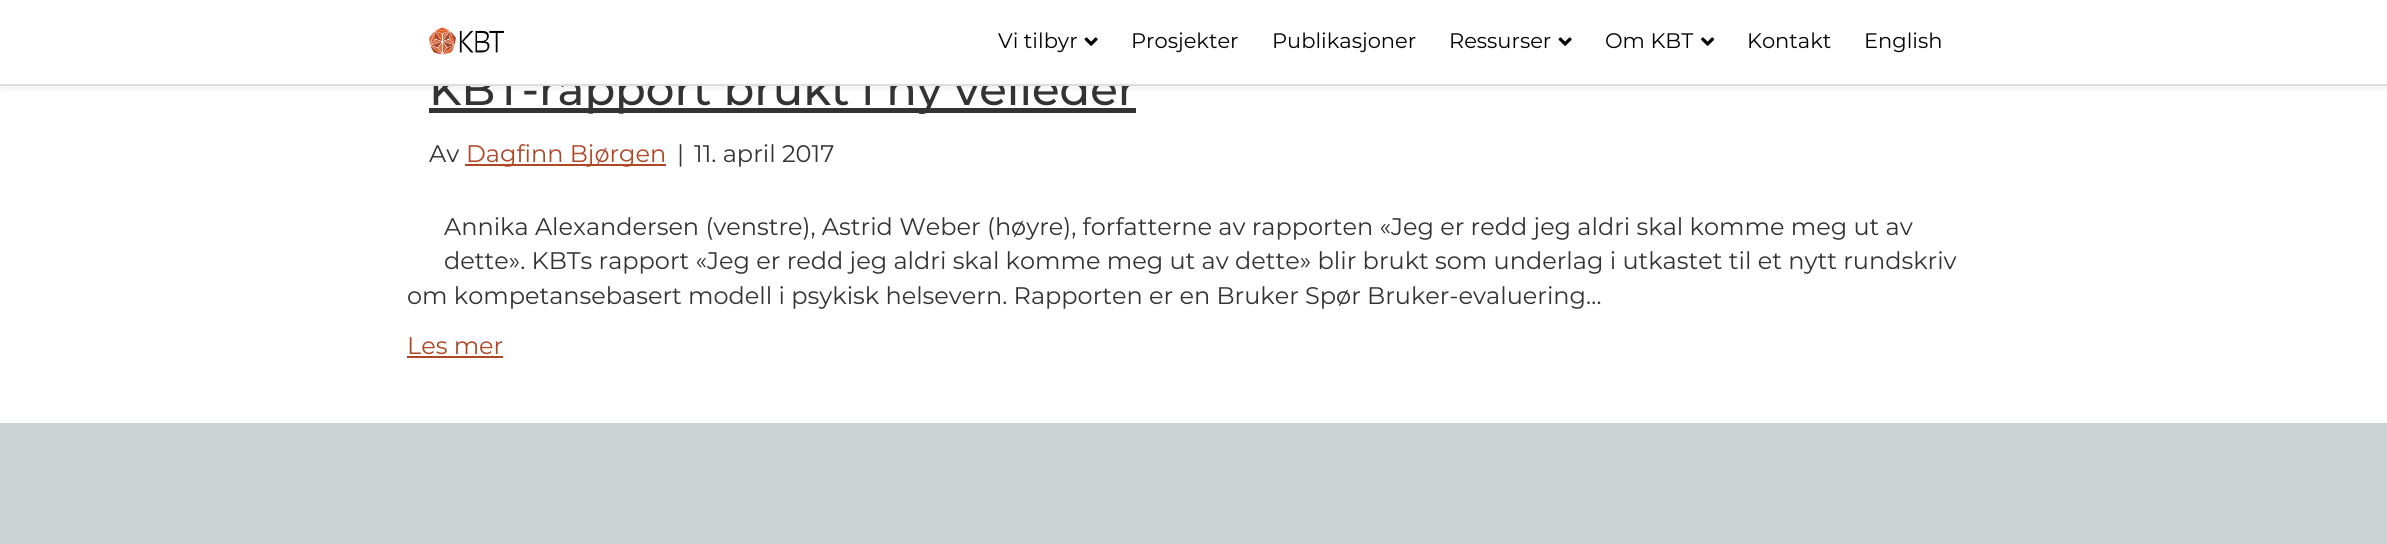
#include <cairo/cairo.h>
#include <math.h>
#include <stddef.h>


static void rounded_rect(cairo_t *cr, double x, double y, double w, double h, double r) {
  cairo_new_sub_path(cr);
  cairo_arc(cr, x + w - r, y + h - r, r, 0, M_PI / 2);
  cairo_arc(cr, x + r, y + h - r, r, M_PI / 2, M_PI);
  cairo_arc(cr, x + r, y + r, r, M_PI, 1.5 * M_PI);
  cairo_arc(cr, x + w - r, y + r, r, 1.5 * M_PI, 2 * M_PI);
  cairo_close_path(cr);
}

static void draw_shadow(cairo_t *cr, double x, double y, double w, double h, double r, double blur, double alpha) {
  cairo_push_group_with_content(cr, CAIRO_CONTENT_ALPHA);
  cairo_set_operator(cr, CAIRO_OPERATOR_SOURCE);
  for (int i = 15; i >= -15 && fmin(w, h) + blur * i / 3 > 0; i -= 2) {
    double e = blur * i / 6;
    cairo_set_source_rgba(cr, 0, 0, 0, alpha * erfc((i - 1) / 8.5) / 2);
    rounded_rect(cr, x - e, y - e, w + 2 * e, h + 2 * e, fmax(0, fmin(r + e + blur * .6, fmin(w, h) / 2 + e)));
    cairo_fill(cr);
  }
  cairo_pattern_t *soft = cairo_pop_group(cr);
  cairo_mask(cr, soft);
  cairo_pattern_destroy(soft);
}

static void draw_image(cairo_t *cr, const char *path, double x, double y, double w, double h) {
  cairo_surface_t *image = cairo_image_surface_create_from_png(path);
  cairo_save(cr);
  cairo_set_source_surface(cr, image, x, y);
  cairo_rectangle(cr, x, y, w, h);
  cairo_fill(cr);
  cairo_restore(cr);
  cairo_surface_destroy(image);
}

static void draw(cairo_t *cr) {
  cairo_set_source_rgb(cr, 1, 1, 1);
  cairo_paint(cr);
  cairo_set_source_rgb(cr, 0, 0, 0);
  draw_shadow(cr, 0, 0, 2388, 86, 0, 5, 0.1);
  cairo_set_source_rgb(cr, 51 / 255.0, 51 / 255.0, 51 / 255.0);
  cairo_rectangle(cr, 429, 108, 707, 5);
  cairo_fill(cr);
  cairo_set_source_rgb(cr, 173 / 255.0, 71 / 255.0, 38 / 255.0);
  cairo_rectangle(cr, 465, 164, 201, 2);
  cairo_fill(cr);
  cairo_rectangle(cr, 407, 356, 96, 2);
  cairo_fill(cr);
  cairo_set_source_rgb(cr, 203 / 255.0, 210 / 255.0, 210 / 255.0);
  cairo_rectangle(cr, 0, 423, 2387, 121);
  cairo_fill(cr);
  cairo_select_font_face(cr, "Montserrat Medium", CAIRO_FONT_SLANT_NORMAL, CAIRO_FONT_WEIGHT_NORMAL);
  cairo_set_font_size(cr, 45);
  cairo_set_source_rgb(cr, 51 / 255.0, 51 / 255.0, 51 / 255.0);
  cairo_move_to(cr, 429, 105);
  cairo_show_text(cr, "KBT-rapport brukt i ny veileder");
  cairo_set_source_rgb(cr, 1, 1, 1);
  cairo_rectangle(cr, 0, 0, 2387, 84);
  cairo_fill(cr);
  cairo_select_font_face(cr, "Montserrat", CAIRO_FONT_SLANT_NORMAL, CAIRO_FONT_WEIGHT_NORMAL);
  cairo_set_font_size(cr, 21);
  cairo_set_source_rgb(cr, 0, 0, 0);
  cairo_move_to(cr, 1864, 48);
  cairo_show_text(cr, "English");
  cairo_move_to(cr, 1747, 48);
  cairo_show_text(cr, "Kontakt");
  draw_image(cr, "images/3.png", 1701, 37, 14, 9);
  cairo_move_to(cr, 1605, 48);
  cairo_show_text(cr, "Om KBT");
  draw_image(cr, "images/2.png", 1558, 37, 14, 9);
  cairo_move_to(cr, 1449, 48);
  cairo_show_text(cr, "Ressurser");
  cairo_move_to(cr, 1272, 48);
  cairo_show_text(cr, "Publikasjoner");
  cairo_move_to(cr, 1131, 48);
  cairo_show_text(cr, "Prosjekter");
  draw_image(cr, "images/2.png", 1084, 37, 14, 9);
  cairo_move_to(cr, 998, 48);
  cairo_show_text(cr, "Vi tilbyr");
  draw_image(cr, "images/1.png", 429, 27, 75, 28);
  cairo_set_source_rgb(cr, 222 / 255.0, 222 / 255.0, 222 / 255.0);
  cairo_rectangle(cr, 0, 84, 2387, 2);
  cairo_fill(cr);
  cairo_set_font_size(cr, 24);
  cairo_set_source_rgb(cr, 51 / 255.0, 51 / 255.0, 51 / 255.0);
  cairo_move_to(cr, 429, 162);
  cairo_show_text(cr, "Av");
  cairo_set_source_rgb(cr, 173 / 255.0, 71 / 255.0, 38 / 255.0);
  cairo_move_to(cr, 466, 162);
  cairo_show_text(cr, "Dagfinn Bjørgen");
  cairo_set_source_rgb(cr, 51 / 255.0, 51 / 255.0, 51 / 255.0);
  cairo_move_to(cr, 677, 162);
  cairo_show_text(cr, "|");
  cairo_move_to(cr, 694, 162);
  cairo_show_text(cr, "11. april 2017");
  cairo_move_to(cr, 444, 235);
  cairo_show_text(cr, "Annika Alexandersen (venstre), Astrid Weber (høyre), forfatterne av rapporten «Jeg er redd jeg aldri skal komme meg ut av");
  cairo_move_to(cr, 444, 269);
  cairo_show_text(cr, "dette». KBTs rapport «Jeg er redd jeg aldri skal komme meg ut av dette» blir brukt som underlag i utkastet til et nytt rundskriv");
  cairo_move_to(cr, 407, 304);
  cairo_show_text(cr, "om kompetansebasert modell i psykisk helsevern. Rapporten er en Bruker Spør Bruker-evaluering…");
  cairo_set_source_rgb(cr, 173 / 255.0, 71 / 255.0, 38 / 255.0);
  cairo_move_to(cr, 407, 354);
  cairo_show_text(cr, "Les mer");
}

int main(void) {
  cairo_surface_t *surface = cairo_image_surface_create(CAIRO_FORMAT_RGB24, 2387, 544);
  cairo_t *cr = cairo_create(surface);
  cairo_font_options_t *options = cairo_font_options_create();
  cairo_font_options_set_hint_metrics(options, CAIRO_HINT_METRICS_OFF);
  cairo_font_options_set_hint_style(options, CAIRO_HINT_STYLE_NONE);
  cairo_set_font_options(cr, options);
  cairo_set_miter_limit(cr, 4);
  draw(cr);
  cairo_surface_write_to_png(surface, "out.png");
  cairo_font_options_destroy(options);
  cairo_destroy(cr);
  cairo_surface_destroy(surface);
  return 0;
}
